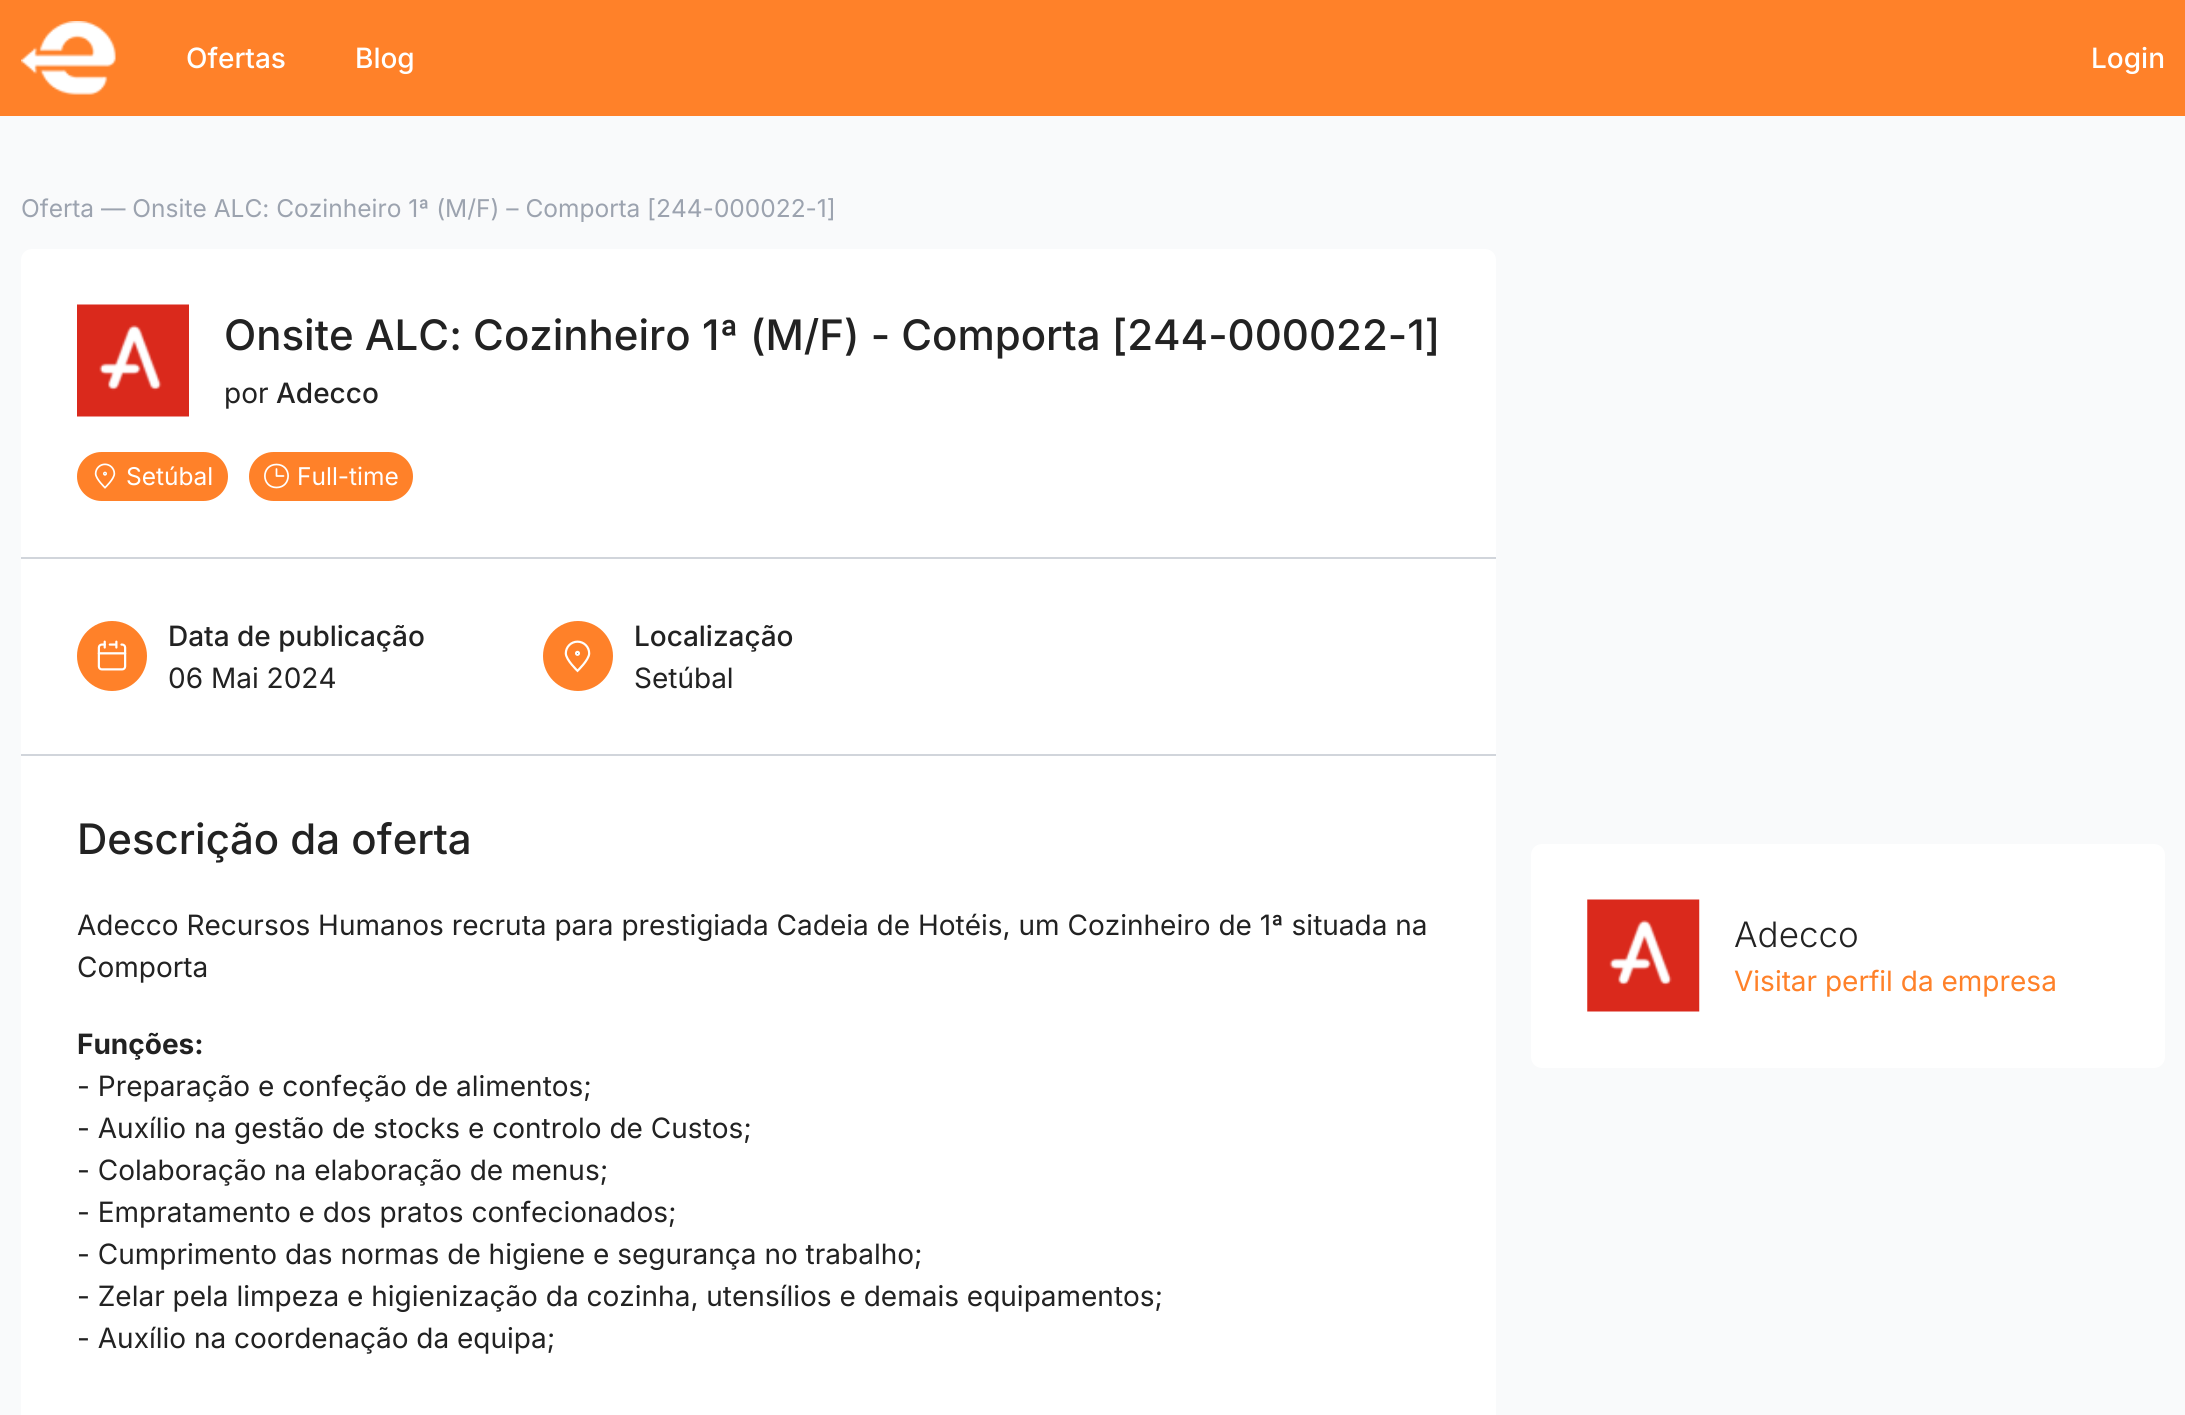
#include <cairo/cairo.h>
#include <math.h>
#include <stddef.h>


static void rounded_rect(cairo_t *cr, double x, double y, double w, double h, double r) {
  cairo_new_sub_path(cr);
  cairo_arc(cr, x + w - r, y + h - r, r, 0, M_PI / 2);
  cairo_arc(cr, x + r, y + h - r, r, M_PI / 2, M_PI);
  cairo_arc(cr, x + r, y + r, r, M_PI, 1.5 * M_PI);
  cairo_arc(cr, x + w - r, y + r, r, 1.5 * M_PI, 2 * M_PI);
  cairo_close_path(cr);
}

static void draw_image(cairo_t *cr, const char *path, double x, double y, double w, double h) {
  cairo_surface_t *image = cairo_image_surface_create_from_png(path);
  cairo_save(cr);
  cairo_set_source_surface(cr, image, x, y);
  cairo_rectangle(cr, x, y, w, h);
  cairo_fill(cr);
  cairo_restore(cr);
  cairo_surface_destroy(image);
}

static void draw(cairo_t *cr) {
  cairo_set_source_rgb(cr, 249 / 255.0, 250 / 255.0, 251 / 255.0);
  cairo_paint(cr);
  cairo_set_source_rgb(cr, 1, 129 / 255.0, 41 / 255.0);
  cairo_rectangle(cr, 0, 0, 2185, 116);
  cairo_fill(cr);
  draw_image(cr, "images/1.png", 21, 21, 95, 74);
  cairo_set_source_rgb(cr, 1, 1, 1);
  rounded_rect(cr, 21, 249, 1475, 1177, 11);
  cairo_fill(cr);
  draw_image(cr, "images/2.png", 77, 304, 112, 113);
  cairo_set_source_rgb(cr, 1, 129 / 255.0, 41 / 255.0);
  rounded_rect(cr, 77, 452, 151, 49, 24.5);
  cairo_fill(cr);
  draw_image(cr, "images/3.png", 94, 463, 22, 26);
  rounded_rect(cr, 249, 452, 164, 49, 24.5);
  cairo_fill(cr);
  cairo_new_path(cr);
  cairo_move_to(cr, 276.5, 469);
  cairo_line_to(cr, 276.5, 476);
  cairo_line_to(cr, 283.5, 476);
  cairo_move_to(cr, 276.5, 487.5);
  cairo_curve_to(cr, 292, 487.5, 292, 464.5, 276.5, 464.5);
  cairo_curve_to(cr, 261, 464.5, 261, 487.5, 276.5, 487.5);
  cairo_close_path(cr);
  cairo_set_source_rgb(cr, 1, 1, 1);
  cairo_set_line_width(cr, 1.7);
  cairo_set_line_cap(cr, CAIRO_LINE_CAP_ROUND);
  cairo_set_line_join(cr, CAIRO_LINE_JOIN_ROUND);
  cairo_stroke(cr);
  cairo_set_source_rgb(cr, 209 / 255.0, 213 / 255.0, 219 / 255.0);
  cairo_rectangle(cr, 21, 557, 1475, 2);
  cairo_fill(cr);
  cairo_set_source_rgb(cr, 1, 129 / 255.0, 41 / 255.0);
  cairo_arc(cr, 112, 656, 35, 0, 2 * M_PI);
  cairo_fill(cr);
  draw_image(cr, "images/4.png", 97, 640, 30, 31);
  cairo_arc(cr, 578, 656, 35, 0, 2 * M_PI);
  cairo_fill(cr);
  draw_image(cr, "images/5.png", 564, 640, 27, 33);
  cairo_set_source_rgb(cr, 209 / 255.0, 213 / 255.0, 219 / 255.0);
  cairo_rectangle(cr, 21, 754, 1475, 2);
  cairo_fill(cr);
  cairo_set_source_rgb(cr, 1, 1, 1);
  rounded_rect(cr, 1531, 844, 634, 224, 11);
  cairo_fill(cr);
  draw_image(cr, "images/6.png", 1587, 899, 113, 113);
  cairo_select_font_face(cr, "Inter Medium", CAIRO_FONT_SLANT_NORMAL, CAIRO_FONT_WEIGHT_NORMAL);
  cairo_set_font_size(cr, 28);
  cairo_move_to(cr, 186, 68);
  cairo_show_text(cr, "Ofertas");
  cairo_move_to(cr, 355, 68);
  cairo_show_text(cr, "Blog");
  cairo_move_to(cr, 2091, 68);
  cairo_show_text(cr, "Login");
  cairo_select_font_face(cr, "Inter", CAIRO_FONT_SLANT_NORMAL, CAIRO_FONT_WEIGHT_NORMAL);
  cairo_set_font_size(cr, 24.5);
  cairo_set_source_rgb(cr, 156 / 255.0, 163 / 255.0, 175 / 255.0);
  cairo_move_to(cr, 21, 217);
  cairo_show_text(cr, "Oferta — Onsite ALC: Cozinheiro 1ª (M/F) – Comporta [244-000022-1]");
  cairo_select_font_face(cr, "Inter Medium", CAIRO_FONT_SLANT_NORMAL, CAIRO_FONT_WEIGHT_NORMAL);
  cairo_set_font_size(cr, 42);
  cairo_set_source_rgb(cr, 34 / 255.0, 34 / 255.0, 34 / 255.0);
  cairo_move_to(cr, 224, 350);
  cairo_show_text(cr, "Onsite ALC: Cozinheiro 1ª (M/F) - Comporta [244-000022-1]");
  cairo_select_font_face(cr, "Inter", CAIRO_FONT_SLANT_NORMAL, CAIRO_FONT_WEIGHT_NORMAL);
  cairo_set_font_size(cr, 28);
  cairo_move_to(cr, 224, 403);
  cairo_show_text(cr, "por");
  cairo_select_font_face(cr, "Inter Medium", CAIRO_FONT_SLANT_NORMAL, CAIRO_FONT_WEIGHT_NORMAL);
  cairo_move_to(cr, 276, 403);
  cairo_show_text(cr, "Adecco");
  cairo_select_font_face(cr, "Inter", CAIRO_FONT_SLANT_NORMAL, CAIRO_FONT_WEIGHT_NORMAL);
  cairo_set_font_size(cr, 24.5);
  cairo_set_source_rgb(cr, 1, 1, 1);
  cairo_move_to(cr, 126, 485);
  cairo_show_text(cr, "Setúbal");
  cairo_move_to(cr, 297, 485);
  cairo_show_text(cr, "Full-time");
  cairo_select_font_face(cr, "Inter Medium", CAIRO_FONT_SLANT_NORMAL, CAIRO_FONT_WEIGHT_NORMAL);
  cairo_set_font_size(cr, 28);
  cairo_set_source_rgb(cr, 34 / 255.0, 34 / 255.0, 34 / 255.0);
  cairo_move_to(cr, 168, 646);
  cairo_show_text(cr, "Data de publicação");
  cairo_select_font_face(cr, "Inter", CAIRO_FONT_SLANT_NORMAL, CAIRO_FONT_WEIGHT_NORMAL);
  cairo_move_to(cr, 168, 688);
  cairo_show_text(cr, "06 Mai 2024");
  cairo_select_font_face(cr, "Inter Medium", CAIRO_FONT_SLANT_NORMAL, CAIRO_FONT_WEIGHT_NORMAL);
  cairo_move_to(cr, 634, 646);
  cairo_show_text(cr, "Localização");
  cairo_select_font_face(cr, "Inter", CAIRO_FONT_SLANT_NORMAL, CAIRO_FONT_WEIGHT_NORMAL);
  cairo_move_to(cr, 634, 688);
  cairo_show_text(cr, "Setúbal");
  cairo_select_font_face(cr, "Inter Medium", CAIRO_FONT_SLANT_NORMAL, CAIRO_FONT_WEIGHT_NORMAL);
  cairo_set_font_size(cr, 42);
  cairo_move_to(cr, 77, 854);
  cairo_show_text(cr, "Descrição da oferta");
  cairo_select_font_face(cr, "Inter", CAIRO_FONT_SLANT_NORMAL, CAIRO_FONT_WEIGHT_NORMAL);
  cairo_set_font_size(cr, 28);
  cairo_move_to(cr, 77, 935);
  cairo_show_text(cr, "Adecco Recursos Humanos recruta para prestigiada Cadeia de Hotéis, um Cozinheiro de 1ª situada na");
  cairo_move_to(cr, 77, 977);
  cairo_show_text(cr, "Comporta");
  cairo_select_font_face(cr, "Inter", CAIRO_FONT_SLANT_NORMAL, CAIRO_FONT_WEIGHT_BOLD);
  cairo_move_to(cr, 77, 1054);
  cairo_show_text(cr, "Funções:");
  cairo_select_font_face(cr, "Inter", CAIRO_FONT_SLANT_NORMAL, CAIRO_FONT_WEIGHT_NORMAL);
  cairo_move_to(cr, 77, 1096);
  cairo_show_text(cr, "- Preparação e confeção de alimentos;");
  cairo_move_to(cr, 77, 1138);
  cairo_show_text(cr, "- Auxílio na gestão de stocks e controlo de Custos;");
  cairo_move_to(cr, 77, 1180);
  cairo_show_text(cr, "- Colaboração na elaboração de menus;");
  cairo_move_to(cr, 77, 1222);
  cairo_show_text(cr, "- Empratamento e dos pratos confecionados;");
  cairo_move_to(cr, 77, 1264);
  cairo_show_text(cr, "- Cumprimento das normas de higiene e segurança no trabalho;");
  cairo_move_to(cr, 77, 1306);
  cairo_show_text(cr, "- Zelar pela limpeza e higienização da cozinha, utensílios e demais equipamentos;");
  cairo_move_to(cr, 77, 1348);
  cairo_show_text(cr, "- Auxílio na coordenação da equipa;");
  cairo_select_font_face(cr, "Inter Light", CAIRO_FONT_SLANT_NORMAL, CAIRO_FONT_WEIGHT_NORMAL);
  cairo_set_font_size(cr, 35);
  cairo_move_to(cr, 1734, 947);
  cairo_show_text(cr, "Adecco");
  cairo_select_font_face(cr, "Inter", CAIRO_FONT_SLANT_NORMAL, CAIRO_FONT_WEIGHT_NORMAL);
  cairo_set_font_size(cr, 28);
  cairo_set_source_rgb(cr, 1, 129 / 255.0, 41 / 255.0);
  cairo_move_to(cr, 1734, 991);
  cairo_show_text(cr, "Visitar perfil da empresa");
}

int main(void) {
  cairo_surface_t *surface = cairo_image_surface_create(CAIRO_FORMAT_RGB24, 2185, 1415);
  cairo_t *cr = cairo_create(surface);
  cairo_font_options_t *options = cairo_font_options_create();
  cairo_font_options_set_hint_metrics(options, CAIRO_HINT_METRICS_OFF);
  cairo_font_options_set_hint_style(options, CAIRO_HINT_STYLE_NONE);
  cairo_set_font_options(cr, options);
  cairo_set_miter_limit(cr, 4);
  draw(cr);
  cairo_surface_write_to_png(surface, "out.png");
  cairo_font_options_destroy(options);
  cairo_destroy(cr);
  cairo_surface_destroy(surface);
  return 0;
}
